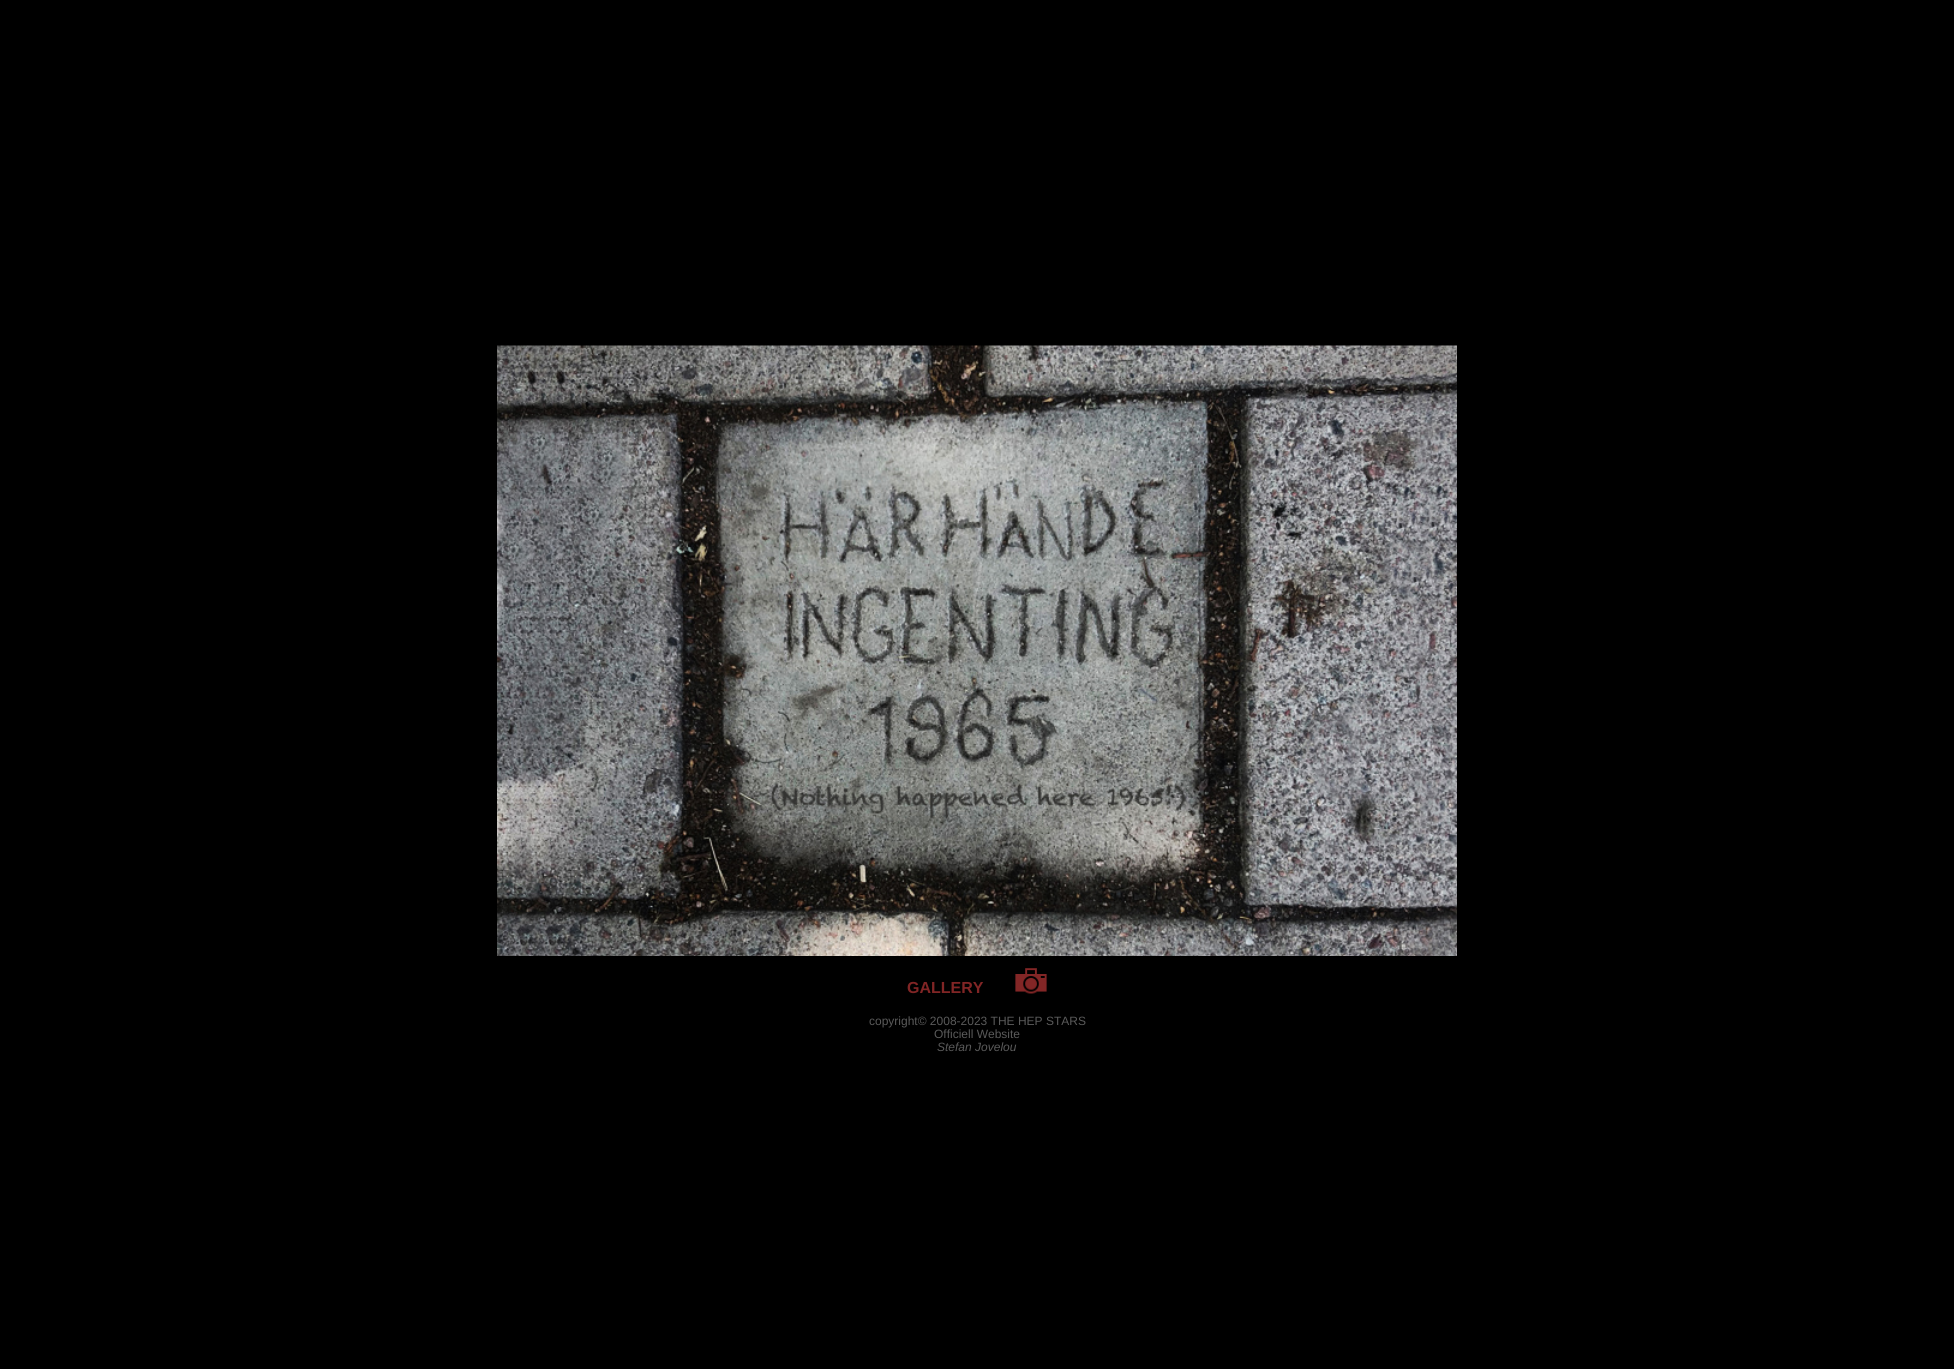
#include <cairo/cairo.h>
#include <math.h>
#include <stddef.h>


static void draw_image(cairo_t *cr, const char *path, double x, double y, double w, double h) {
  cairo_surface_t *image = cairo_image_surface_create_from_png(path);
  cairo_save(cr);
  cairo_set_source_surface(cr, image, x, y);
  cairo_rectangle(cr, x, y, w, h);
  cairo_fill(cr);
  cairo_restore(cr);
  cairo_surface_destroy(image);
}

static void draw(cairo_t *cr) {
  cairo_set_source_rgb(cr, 0, 0, 0);
  cairo_paint(cr);
  draw_image(cr, "images/1.png", 497, 345, 960, 611);
  draw_image(cr, "images/2.png", 1015, 968, 32, 26);
  cairo_select_font_face(cr, "Liberation Sans", CAIRO_FONT_SLANT_NORMAL, CAIRO_FONT_WEIGHT_BOLD);
  cairo_set_font_size(cr, 16);
  cairo_set_source_rgb(cr, 129 / 255.0, 37 / 255.0, 37 / 255.0);
  cairo_move_to(cr, 907, 993);
  cairo_show_text(cr, "GALLERY");
  cairo_select_font_face(cr, "Liberation Sans", CAIRO_FONT_SLANT_NORMAL, CAIRO_FONT_WEIGHT_NORMAL);
  cairo_set_font_size(cr, 12);
  cairo_set_source_rgb(cr, 90 / 255.0, 90 / 255.0, 90 / 255.0);
  cairo_move_to(cr, 869, 1025);
  cairo_show_text(cr, "copyright© 2008-2023 THE HEP STARS");
  cairo_move_to(cr, 934, 1038);
  cairo_show_text(cr, "Officiell Website");
  cairo_select_font_face(cr, "Liberation Sans", CAIRO_FONT_SLANT_ITALIC, CAIRO_FONT_WEIGHT_NORMAL);
  cairo_move_to(cr, 937, 1051);
  cairo_show_text(cr, "Stefan Jovelou");
}

int main(void) {
  cairo_surface_t *surface = cairo_image_surface_create(CAIRO_FORMAT_RGB24, 1954, 1369);
  cairo_t *cr = cairo_create(surface);
  cairo_font_options_t *options = cairo_font_options_create();
  cairo_font_options_set_hint_metrics(options, CAIRO_HINT_METRICS_OFF);
  cairo_font_options_set_hint_style(options, CAIRO_HINT_STYLE_NONE);
  cairo_set_font_options(cr, options);
  cairo_set_miter_limit(cr, 4);
  draw(cr);
  cairo_surface_write_to_png(surface, "out.png");
  cairo_font_options_destroy(options);
  cairo_destroy(cr);
  cairo_surface_destroy(surface);
  return 0;
}
